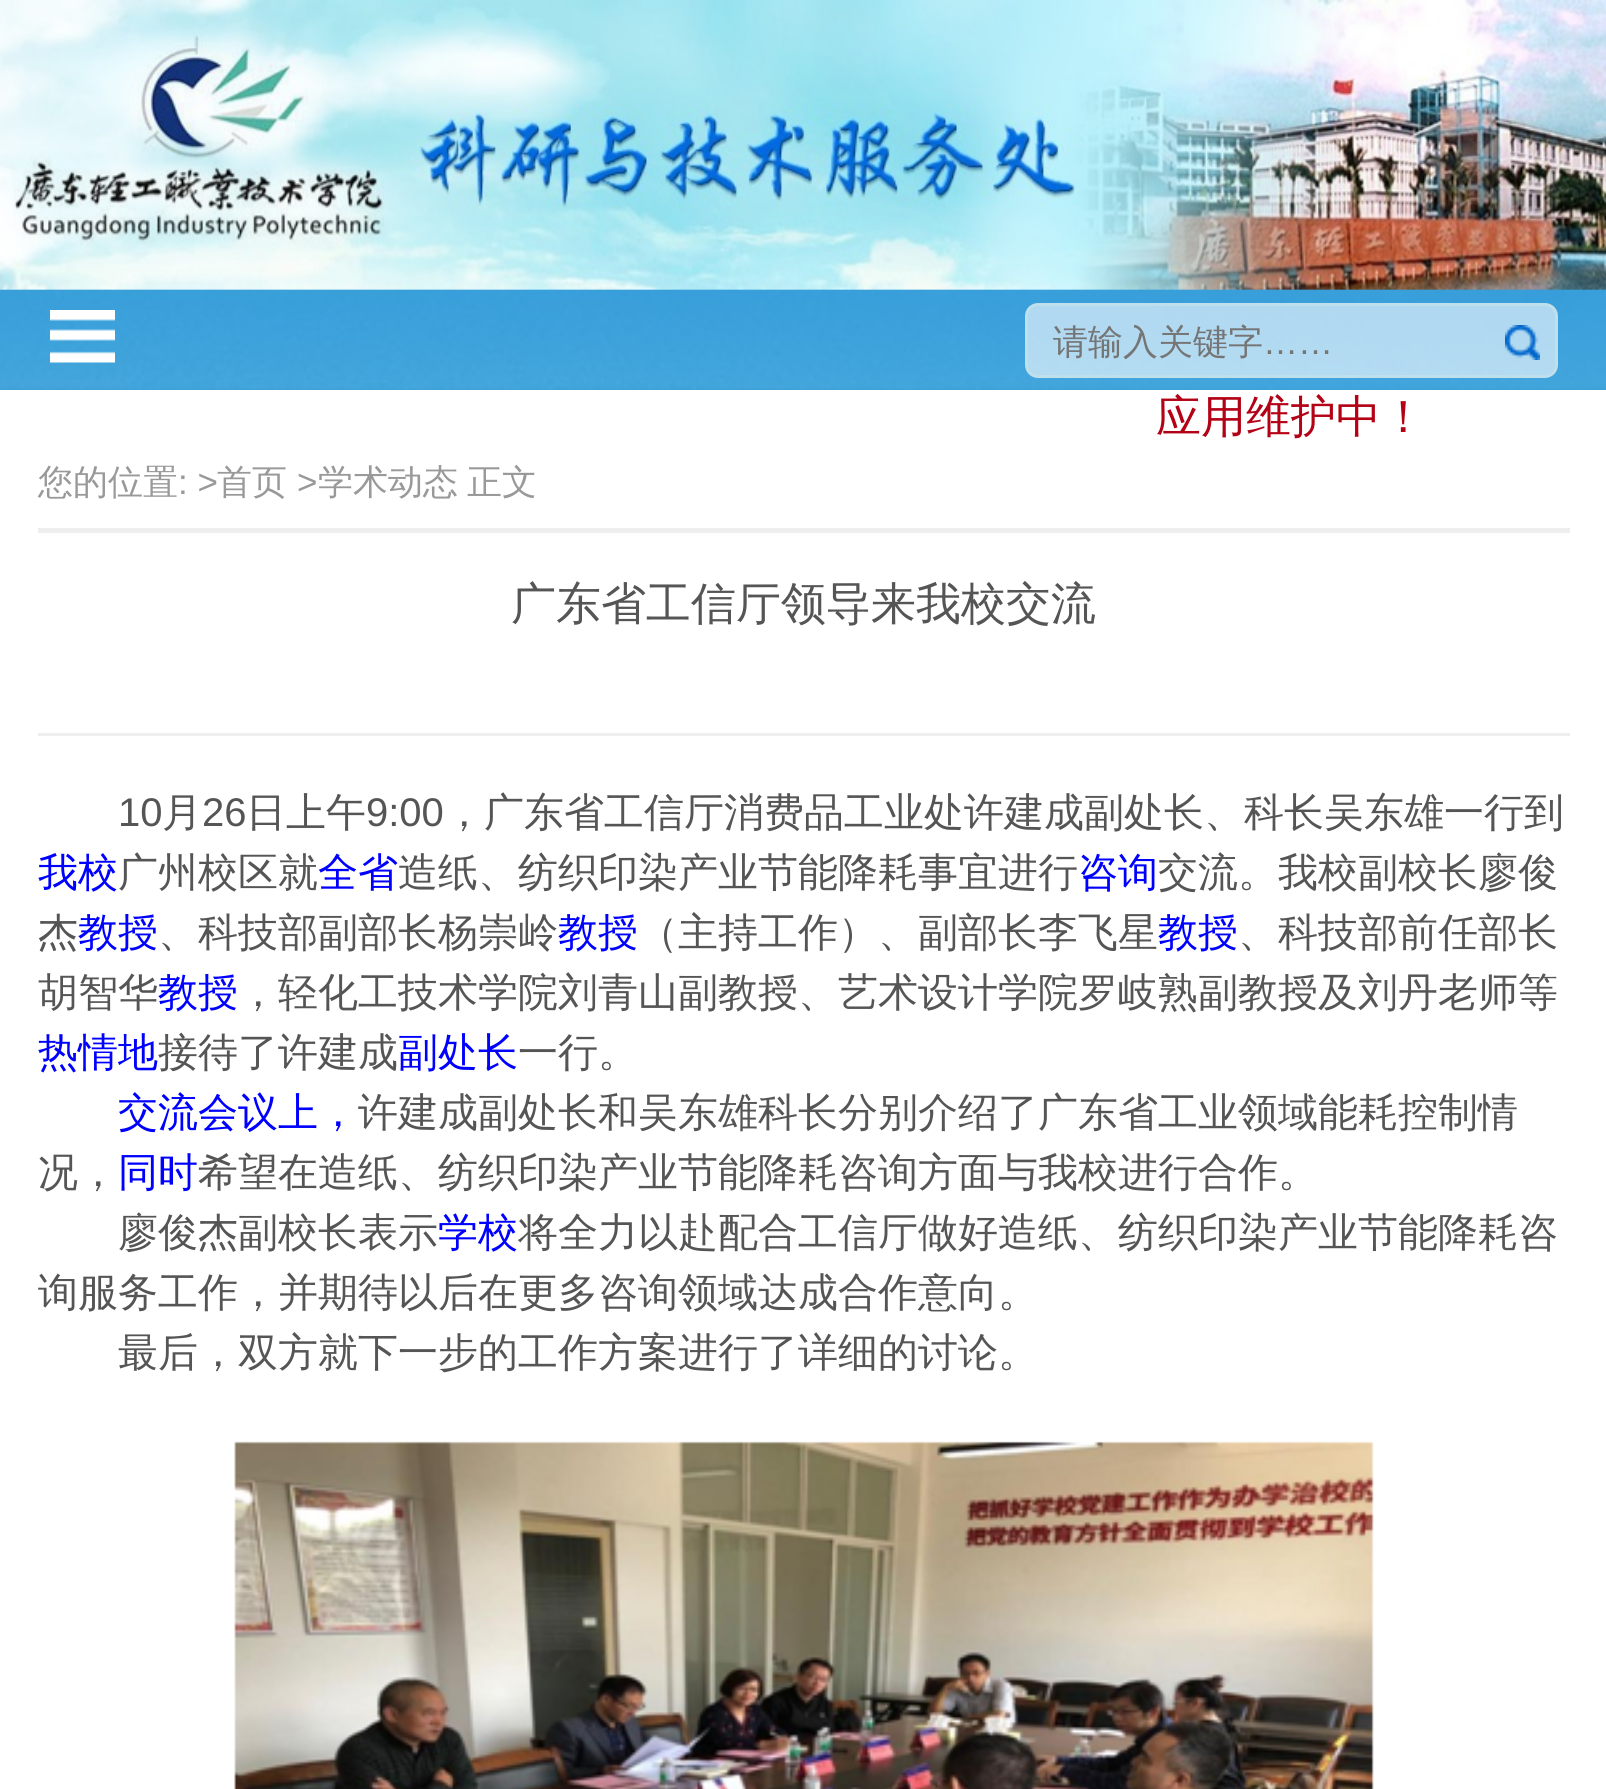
#include <cairo/cairo.h>
#include <math.h>
#include <stddef.h>


static void rounded_rect(cairo_t *cr, double x, double y, double w, double h, double r) {
  cairo_new_sub_path(cr);
  cairo_arc(cr, x + w - r, y + h - r, r, 0, M_PI / 2);
  cairo_arc(cr, x + r, y + h - r, r, M_PI / 2, M_PI);
  cairo_arc(cr, x + r, y + r, r, M_PI, 1.5 * M_PI);
  cairo_arc(cr, x + w - r, y + r, r, 1.5 * M_PI, 2 * M_PI);
  cairo_close_path(cr);
}

static void draw_shadow(cairo_t *cr, double x, double y, double w, double h, double r, double blur, double alpha) {
  cairo_push_group_with_content(cr, CAIRO_CONTENT_ALPHA);
  cairo_set_operator(cr, CAIRO_OPERATOR_SOURCE);
  for (int i = 15; i >= -15 && fmin(w, h) + blur * i / 3 > 0; i -= 2) {
    double e = blur * i / 6;
    cairo_set_source_rgba(cr, 0, 0, 0, alpha * erfc((i - 1) / 8.5) / 2);
    rounded_rect(cr, x - e, y - e, w + 2 * e, h + 2 * e, fmax(0, fmin(r + e + blur * .6, fmin(w, h) / 2 + e)));
    cairo_fill(cr);
  }
  cairo_pattern_t *soft = cairo_pop_group(cr);
  cairo_mask(cr, soft);
  cairo_pattern_destroy(soft);
}

static void draw_image(cairo_t *cr, const char *path, double x, double y, double w, double h) {
  cairo_surface_t *image = cairo_image_surface_create_from_png(path);
  cairo_save(cr);
  cairo_set_source_surface(cr, image, x, y);
  cairo_rectangle(cr, x, y, w, h);
  cairo_fill(cr);
  cairo_restore(cr);
  cairo_surface_destroy(image);
}

static void draw(cairo_t *cr) {
  cairo_set_source_rgb(cr, 1, 1, 1);
  cairo_paint(cr);
  draw_image(cr, "images/1.png", 0, 289, 1606, 101);
  draw_image(cr, "images/2.png", 0, 0, 1606, 290);
  draw_image(cr, "images/3.png", 50, 310, 65, 53);
  cairo_set_source_rgba(cr, 1, 1, 1, 0.6);
  rounded_rect(cr, 1026.5, 304.5, 530, 72, 11.5);
  cairo_fill_preserve(cr);
  cairo_set_source_rgb(cr, 190 / 255.0, 223 / 255.0, 236 / 255.0);
  cairo_set_line_width(cr, 3);
  cairo_stroke(cr);
  draw_image(cr, "images/4.png", 1505, 325, 35, 35);
  cairo_set_source_rgb(cr, 6 / 255.0, 131 / 255.0, 167 / 255.0);
  draw_shadow(cr, 0, 398, 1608, 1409, 0, 6, 1);
  cairo_set_source_rgb(cr, 1, 1, 1);
  cairo_rectangle(cr, 0, 390, 1606, 1399);
  cairo_fill(cr);
  cairo_set_source_rgb(cr, 238 / 255.0, 238 / 255.0, 238 / 255.0);
  cairo_rectangle(cr, 38, 528, 1532, 5);
  cairo_fill(cr);
  cairo_rectangle(cr, 38, 733, 1532, 3);
  cairo_fill(cr);
  draw_image(cr, "images/5.png", 234, 1441, 1140, 348);
  cairo_select_font_face(cr, "WenQuanYi Zen Hei Medium", CAIRO_FONT_SLANT_NORMAL, CAIRO_FONT_WEIGHT_NORMAL);
  cairo_set_font_size(cr, 35);
  cairo_set_source_rgb(cr, 117 / 255.0, 117 / 255.0, 117 / 255.0);
  cairo_move_to(cr, 1053, 354);
  cairo_show_text(cr, "请输入关键字");
  cairo_select_font_face(cr, "Liberation Sans", CAIRO_FONT_SLANT_NORMAL, CAIRO_FONT_WEIGHT_NORMAL);
  cairo_move_to(cr, 1263, 354);
  cairo_show_text(cr, "……");
  cairo_select_font_face(cr, "WenQuanYi Zen Hei Medium", CAIRO_FONT_SLANT_NORMAL, CAIRO_FONT_WEIGHT_NORMAL);
  cairo_set_font_size(cr, 45);
  cairo_set_source_rgb(cr, 179 / 255.0, 2 / 255.0, 22 / 255.0);
  cairo_move_to(cr, 1156, 432);
  cairo_show_text(cr, "应用维护中！");
  cairo_set_font_size(cr, 35);
  cairo_set_source_rgb(cr, 153 / 255.0, 153 / 255.0, 153 / 255.0);
  cairo_move_to(cr, 38, 494);
  cairo_show_text(cr, "您的位置");
  cairo_select_font_face(cr, "Liberation Sans", CAIRO_FONT_SLANT_NORMAL, CAIRO_FONT_WEIGHT_NORMAL);
  cairo_move_to(cr, 178, 494);
  cairo_show_text(cr, ": >");
  cairo_select_font_face(cr, "WenQuanYi Zen Hei Medium", CAIRO_FONT_SLANT_NORMAL, CAIRO_FONT_WEIGHT_NORMAL);
  cairo_move_to(cr, 217, 494);
  cairo_show_text(cr, "首页");
  cairo_select_font_face(cr, "Liberation Sans", CAIRO_FONT_SLANT_NORMAL, CAIRO_FONT_WEIGHT_NORMAL);
  cairo_move_to(cr, 297, 494);
  cairo_show_text(cr, ">");
  cairo_select_font_face(cr, "WenQuanYi Zen Hei Medium", CAIRO_FONT_SLANT_NORMAL, CAIRO_FONT_WEIGHT_NORMAL);
  cairo_move_to(cr, 318, 494);
  cairo_show_text(cr, "学术动态");
  cairo_move_to(cr, 467, 494);
  cairo_show_text(cr, "正文");
  cairo_set_font_size(cr, 45);
  cairo_set_source_rgb(cr, 85 / 255.0, 85 / 255.0, 85 / 255.0);
  cairo_move_to(cr, 511, 619);
  cairo_show_text(cr, "广东省工信厅领导来我校交流");
  cairo_select_font_face(cr, "Liberation Sans", CAIRO_FONT_SLANT_NORMAL, CAIRO_FONT_WEIGHT_NORMAL);
  cairo_set_font_size(cr, 40);
  cairo_move_to(cr, 118, 826);
  cairo_show_text(cr, "10");
  cairo_select_font_face(cr, "WenQuanYi Zen Hei Medium", CAIRO_FONT_SLANT_NORMAL, CAIRO_FONT_WEIGHT_NORMAL);
  cairo_move_to(cr, 162, 826);
  cairo_show_text(cr, "月");
  cairo_select_font_face(cr, "Liberation Sans", CAIRO_FONT_SLANT_NORMAL, CAIRO_FONT_WEIGHT_NORMAL);
  cairo_move_to(cr, 202, 826);
  cairo_show_text(cr, "26");
  cairo_select_font_face(cr, "WenQuanYi Zen Hei Medium", CAIRO_FONT_SLANT_NORMAL, CAIRO_FONT_WEIGHT_NORMAL);
  cairo_move_to(cr, 246, 826);
  cairo_show_text(cr, "日上午");
  cairo_select_font_face(cr, "Liberation Sans", CAIRO_FONT_SLANT_NORMAL, CAIRO_FONT_WEIGHT_NORMAL);
  cairo_move_to(cr, 366, 826);
  cairo_show_text(cr, "9:00");
  cairo_select_font_face(cr, "WenQuanYi Zen Hei Medium", CAIRO_FONT_SLANT_NORMAL, CAIRO_FONT_WEIGHT_NORMAL);
  cairo_move_to(cr, 444, 826);
  cairo_show_text(cr, "，广东省工信厅消费品工业处许建成副处长、科长吴东雄一行到");
  cairo_set_source_rgb(cr, 0, 0, 1);
  cairo_move_to(cr, 38, 886);
  cairo_show_text(cr, "我校");
  cairo_set_source_rgb(cr, 85 / 255.0, 85 / 255.0, 85 / 255.0);
  cairo_move_to(cr, 118, 886);
  cairo_show_text(cr, "广州校区就");
  cairo_set_source_rgb(cr, 0, 0, 1);
  cairo_move_to(cr, 318, 886);
  cairo_show_text(cr, "全省");
  cairo_set_source_rgb(cr, 85 / 255.0, 85 / 255.0, 85 / 255.0);
  cairo_move_to(cr, 398, 886);
  cairo_show_text(cr, "造纸、纺织印染产业节能降耗事宜进行");
  cairo_set_source_rgb(cr, 0, 0, 1);
  cairo_move_to(cr, 1078, 886);
  cairo_show_text(cr, "咨询");
  cairo_set_source_rgb(cr, 85 / 255.0, 85 / 255.0, 85 / 255.0);
  cairo_move_to(cr, 1158, 886);
  cairo_show_text(cr, "交流。我校副校长廖俊");
  cairo_move_to(cr, 38, 946);
  cairo_show_text(cr, "杰");
  cairo_set_source_rgb(cr, 0, 0, 1);
  cairo_move_to(cr, 78, 946);
  cairo_show_text(cr, "教授");
  cairo_set_source_rgb(cr, 85 / 255.0, 85 / 255.0, 85 / 255.0);
  cairo_move_to(cr, 158, 946);
  cairo_show_text(cr, "、科技部副部长杨崇岭");
  cairo_set_source_rgb(cr, 0, 0, 1);
  cairo_move_to(cr, 558, 946);
  cairo_show_text(cr, "教授");
  cairo_set_source_rgb(cr, 85 / 255.0, 85 / 255.0, 85 / 255.0);
  cairo_move_to(cr, 638, 946);
  cairo_show_text(cr, "（主持工作）、副部长李飞星");
  cairo_set_source_rgb(cr, 0, 0, 1);
  cairo_move_to(cr, 1158, 946);
  cairo_show_text(cr, "教授");
  cairo_set_source_rgb(cr, 85 / 255.0, 85 / 255.0, 85 / 255.0);
  cairo_move_to(cr, 1238, 946);
  cairo_show_text(cr, "、科技部前任部长");
  cairo_move_to(cr, 38, 1006);
  cairo_show_text(cr, "胡智华");
  cairo_set_source_rgb(cr, 0, 0, 1);
  cairo_move_to(cr, 158, 1006);
  cairo_show_text(cr, "教授");
  cairo_set_source_rgb(cr, 85 / 255.0, 85 / 255.0, 85 / 255.0);
  cairo_move_to(cr, 238, 1006);
  cairo_show_text(cr, "，轻化工技术学院刘青山副教授、艺术设计学院罗岐熟副教授及刘丹老师等");
  cairo_set_source_rgb(cr, 0, 0, 1);
  cairo_move_to(cr, 38, 1066);
  cairo_show_text(cr, "热情地");
  cairo_set_source_rgb(cr, 85 / 255.0, 85 / 255.0, 85 / 255.0);
  cairo_move_to(cr, 158, 1066);
  cairo_show_text(cr, "接待了许建成");
  cairo_set_source_rgb(cr, 0, 0, 1);
  cairo_move_to(cr, 398, 1066);
  cairo_show_text(cr, "副处长");
  cairo_set_source_rgb(cr, 85 / 255.0, 85 / 255.0, 85 / 255.0);
  cairo_move_to(cr, 518, 1066);
  cairo_show_text(cr, "一行。");
  cairo_set_source_rgb(cr, 0, 0, 1);
  cairo_move_to(cr, 118, 1126);
  cairo_show_text(cr, "交流会议上，");
  cairo_set_source_rgb(cr, 85 / 255.0, 85 / 255.0, 85 / 255.0);
  cairo_move_to(cr, 358, 1126);
  cairo_show_text(cr, "许建成副处长和吴东雄科长分别介绍了广东省工业领域能耗控制情");
  cairo_move_to(cr, 38, 1186);
  cairo_show_text(cr, "况，");
  cairo_set_source_rgb(cr, 0, 0, 1);
  cairo_move_to(cr, 118, 1186);
  cairo_show_text(cr, "同时");
  cairo_set_source_rgb(cr, 85 / 255.0, 85 / 255.0, 85 / 255.0);
  cairo_move_to(cr, 198, 1186);
  cairo_show_text(cr, "希望在造纸、纺织印染产业节能降耗咨询方面与我校进行合作。");
  cairo_move_to(cr, 118, 1246);
  cairo_show_text(cr, "廖俊杰副校长表示");
  cairo_set_source_rgb(cr, 0, 0, 1);
  cairo_move_to(cr, 438, 1246);
  cairo_show_text(cr, "学校");
  cairo_set_source_rgb(cr, 85 / 255.0, 85 / 255.0, 85 / 255.0);
  cairo_move_to(cr, 518, 1246);
  cairo_show_text(cr, "将全力以赴配合工信厅做好造纸、纺织印染产业节能降耗咨");
  cairo_save(cr);
  cairo_rectangle(cr, 38, 440, 1532, 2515);
  cairo_clip(cr);
  cairo_move_to(cr, 38, 1306);
  cairo_show_text(cr, "询服务工作，并期待以后在更多咨询领域达成合作意向。");
  cairo_restore(cr);
  cairo_move_to(cr, 118, 1366);
  cairo_show_text(cr, "最后，双方就下一步的工作方案进行了详细的讨论。");
}

int main(void) {
  cairo_surface_t *surface = cairo_image_surface_create(CAIRO_FORMAT_RGB24, 1606, 1789);
  cairo_t *cr = cairo_create(surface);
  cairo_font_options_t *options = cairo_font_options_create();
  cairo_font_options_set_hint_metrics(options, CAIRO_HINT_METRICS_OFF);
  cairo_font_options_set_hint_style(options, CAIRO_HINT_STYLE_NONE);
  cairo_set_font_options(cr, options);
  cairo_set_miter_limit(cr, 4);
  draw(cr);
  cairo_surface_write_to_png(surface, "out.png");
  cairo_font_options_destroy(options);
  cairo_destroy(cr);
  cairo_surface_destroy(surface);
  return 0;
}
